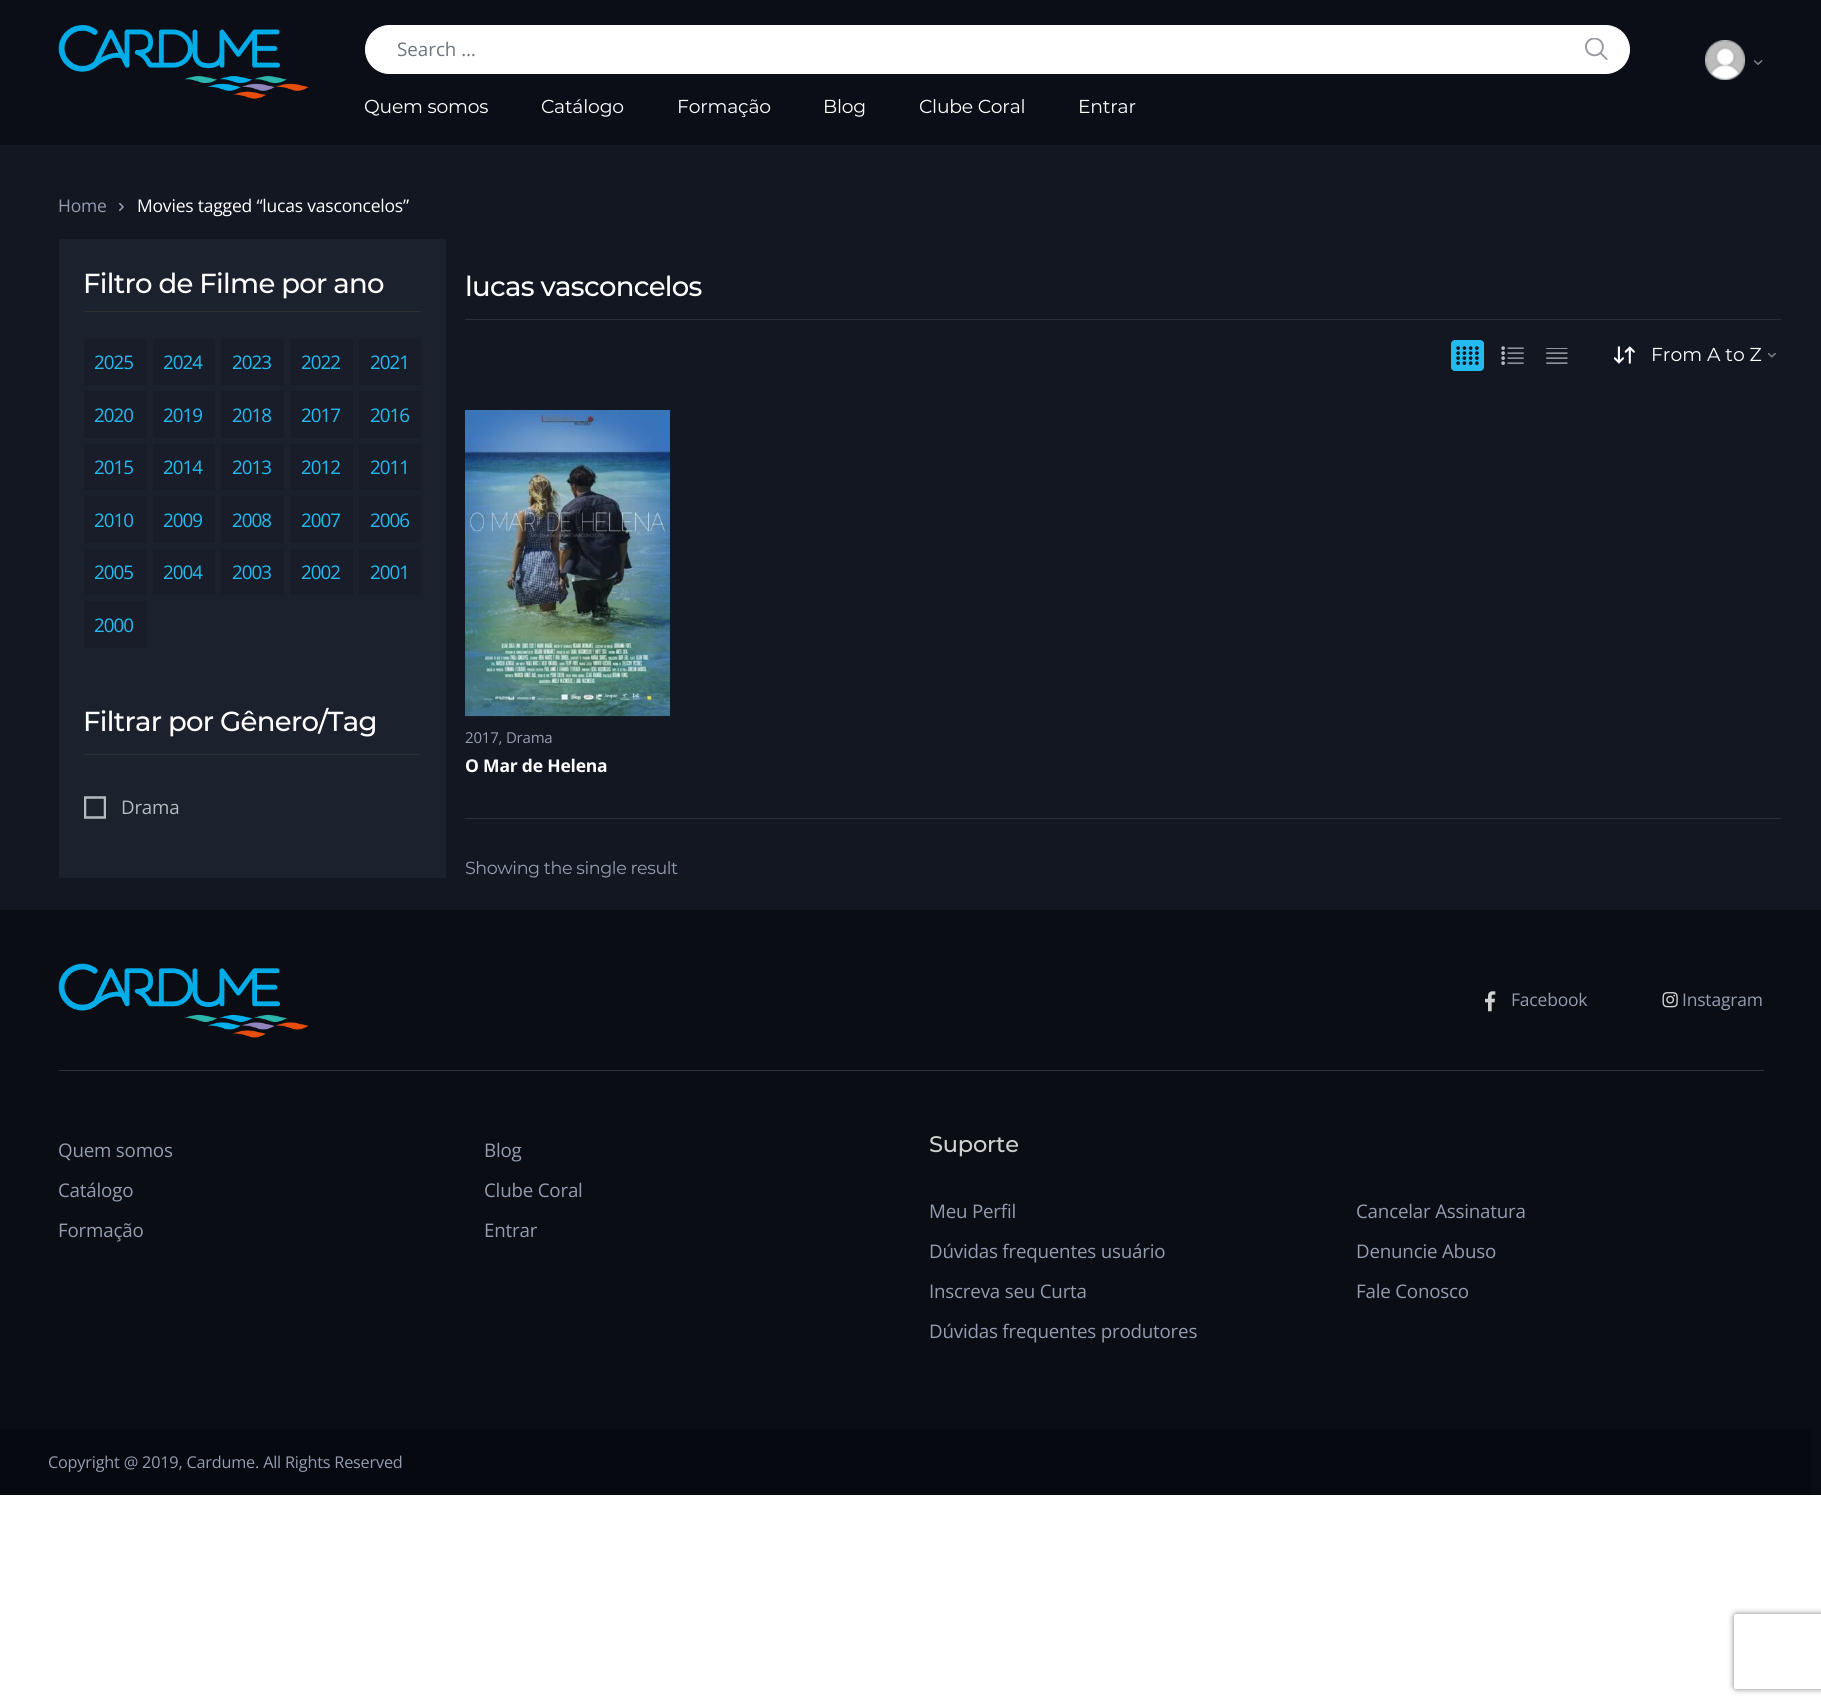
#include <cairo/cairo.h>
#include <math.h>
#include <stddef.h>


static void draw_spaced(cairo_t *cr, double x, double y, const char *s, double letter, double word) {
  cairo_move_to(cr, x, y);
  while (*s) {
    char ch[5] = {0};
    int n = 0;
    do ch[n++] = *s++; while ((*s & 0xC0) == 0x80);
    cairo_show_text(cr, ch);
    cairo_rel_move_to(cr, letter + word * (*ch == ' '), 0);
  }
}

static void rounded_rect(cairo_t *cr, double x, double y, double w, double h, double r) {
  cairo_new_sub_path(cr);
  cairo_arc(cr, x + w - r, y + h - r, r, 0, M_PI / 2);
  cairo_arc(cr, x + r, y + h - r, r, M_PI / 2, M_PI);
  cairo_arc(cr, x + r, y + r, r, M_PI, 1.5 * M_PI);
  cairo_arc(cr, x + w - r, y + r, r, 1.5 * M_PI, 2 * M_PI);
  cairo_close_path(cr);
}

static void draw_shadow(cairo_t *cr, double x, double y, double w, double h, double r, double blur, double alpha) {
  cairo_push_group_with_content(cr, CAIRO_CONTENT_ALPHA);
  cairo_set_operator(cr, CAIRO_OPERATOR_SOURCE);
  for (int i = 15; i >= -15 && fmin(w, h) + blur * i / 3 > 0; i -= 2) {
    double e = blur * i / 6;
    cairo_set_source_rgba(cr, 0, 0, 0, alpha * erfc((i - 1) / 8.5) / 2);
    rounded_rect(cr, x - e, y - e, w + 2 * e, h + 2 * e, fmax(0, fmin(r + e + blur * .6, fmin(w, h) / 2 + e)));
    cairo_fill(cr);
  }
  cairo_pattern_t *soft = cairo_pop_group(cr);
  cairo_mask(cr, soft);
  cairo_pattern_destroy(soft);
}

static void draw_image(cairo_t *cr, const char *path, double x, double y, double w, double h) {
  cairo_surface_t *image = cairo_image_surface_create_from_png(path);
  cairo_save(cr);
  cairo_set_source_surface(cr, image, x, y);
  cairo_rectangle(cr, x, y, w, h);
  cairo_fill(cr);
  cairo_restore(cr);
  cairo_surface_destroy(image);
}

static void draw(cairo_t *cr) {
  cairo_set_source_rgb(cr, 1, 1, 1);
  cairo_paint(cr);
  cairo_set_source_rgb(cr, 19 / 255.0, 23 / 255.0, 34 / 255.0);
  cairo_rectangle(cr, 0, 145, 1821, 765);
  cairo_fill(cr);
  cairo_set_source_rgb(cr, 12 / 255.0, 14 / 255.0, 23 / 255.0);
  cairo_rectangle(cr, 0, 0, 1821, 145);
  cairo_fill(cr);
  draw_image(cr, "images/1.png", 58, 25, 251, 74);
  cairo_set_source_rgb(cr, 1, 1, 1);
  rounded_rect(cr, 365.5, 25.5, 1264, 48, 24);
  cairo_fill_preserve(cr);
  cairo_set_line_width(cr, 1);
  cairo_stroke(cr);
  draw_image(cr, "images/2.png", 1585, 38, 23, 22);
  draw_image(cr, "images/3.png", 1705, 40, 40, 40);
  draw_image(cr, "images/4.png", 1754, 60, 9, 5);
  draw_image(cr, "images/5.png", 119, 203, 5, 8);
  cairo_set_source_rgb(cr, 28 / 255.0, 33 / 255.0, 46 / 255.0);
  cairo_rectangle(cr, 59, 239, 387, 639);
  cairo_fill(cr);
  cairo_set_source_rgb(cr, 47 / 255.0, 47 / 255.0, 51 / 255.0);
  cairo_rectangle(cr, 84, 311, 337, 1);
  cairo_fill(cr);
  cairo_set_source_rgb(cr, 24 / 255.0, 29 / 255.0, 41 / 255.0);
  cairo_rectangle(cr, 84, 339, 62, 46);
  cairo_fill(cr);
  cairo_rectangle(cr, 153, 339, 62, 46);
  cairo_fill(cr);
  cairo_rectangle(cr, 221, 339, 63, 46);
  cairo_fill(cr);
  cairo_rectangle(cr, 290, 339, 63, 46);
  cairo_fill(cr);
  cairo_rectangle(cr, 359, 339, 62, 46);
  cairo_fill(cr);
  cairo_rectangle(cr, 84, 391, 62, 47);
  cairo_fill(cr);
  cairo_rectangle(cr, 153, 391, 62, 47);
  cairo_fill(cr);
  cairo_rectangle(cr, 221, 391, 63, 47);
  cairo_fill(cr);
  cairo_rectangle(cr, 290, 391, 63, 47);
  cairo_fill(cr);
  cairo_rectangle(cr, 359, 391, 62, 47);
  cairo_fill(cr);
  cairo_rectangle(cr, 84, 444, 62, 46);
  cairo_fill(cr);
  cairo_rectangle(cr, 153, 444, 62, 46);
  cairo_fill(cr);
  cairo_rectangle(cr, 221, 444, 63, 46);
  cairo_fill(cr);
  cairo_rectangle(cr, 290, 444, 63, 46);
  cairo_fill(cr);
  cairo_rectangle(cr, 359, 444, 62, 46);
  cairo_fill(cr);
  cairo_rectangle(cr, 84, 496, 62, 47);
  cairo_fill(cr);
  cairo_rectangle(cr, 153, 496, 62, 47);
  cairo_fill(cr);
  cairo_rectangle(cr, 221, 496, 63, 47);
  cairo_fill(cr);
  cairo_rectangle(cr, 290, 496, 63, 47);
  cairo_fill(cr);
  cairo_rectangle(cr, 359, 496, 62, 47);
  cairo_fill(cr);
  cairo_rectangle(cr, 84, 549, 62, 46);
  cairo_fill(cr);
  cairo_rectangle(cr, 153, 549, 62, 46);
  cairo_fill(cr);
  cairo_rectangle(cr, 221, 549, 63, 46);
  cairo_fill(cr);
  cairo_rectangle(cr, 290, 549, 63, 46);
  cairo_fill(cr);
  cairo_rectangle(cr, 359, 549, 62, 46);
  cairo_fill(cr);
  cairo_rectangle(cr, 84, 601, 62, 47);
  cairo_fill(cr);
  cairo_set_source_rgb(cr, 47 / 255.0, 47 / 255.0, 51 / 255.0);
  cairo_rectangle(cr, 84, 754, 337, 1);
  cairo_fill(cr);
  draw_image(cr, "images/6.png", 84, 796, 22, 23);
  cairo_set_source_rgb(cr, 42 / 255.0, 46 / 255.0, 60 / 255.0);
  cairo_rectangle(cr, 465, 319, 1316, 1);
  cairo_fill(cr);
  cairo_set_source_rgb(cr, 36 / 255.0, 186 / 255.0, 239 / 255.0);
  rounded_rect(cr, 1451, 340, 33, 31, 4);
  cairo_fill(cr);
  draw_image(cr, "images/7.png", 1456, 346, 23, 19);
  draw_image(cr, "images/8.png", 1501, 346, 23, 19);
  draw_image(cr, "images/9.png", 1546, 348, 22, 16);
  draw_image(cr, "images/10.png", 1614, 346, 21, 18);
  draw_image(cr, "images/11.png", 1768, 353, 8, 5);
  draw_image(cr, "images/12.png", 465, 410, 205, 307);
  cairo_set_source_rgb(cr, 42 / 255.0, 46 / 255.0, 60 / 255.0);
  cairo_rectangle(cr, 465, 818, 1316, 1);
  cairo_fill(cr);
  cairo_set_source_rgb(cr, 10 / 255.0, 13 / 255.0, 20 / 255.0);
  cairo_rectangle(cr, 0, 910, 1821, 585);
  cairo_fill(cr);
  draw_image(cr, "images/13.png", 58, 963, 251, 75);
  draw_image(cr, "images/14.png", 1485, 991, 11, 21);
  draw_image(cr, "images/15.png", 1662, 992, 16, 16);
  cairo_set_source_rgb(cr, 45 / 255.0, 50 / 255.0, 63 / 255.0);
  cairo_rectangle(cr, 59, 1070, 1705, 1);
  cairo_fill(cr);
  cairo_set_source_rgb(cr, 6 / 255.0, 9 / 255.0, 15 / 255.0);
  cairo_rectangle(cr, 0, 1429, 1811, 66);
  cairo_fill(cr);
  cairo_save(cr);
  cairo_set_fill_rule(cr, CAIRO_FILL_RULE_EVEN_ODD);
  cairo_new_path(cr);
  cairo_move_to(cr, 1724, 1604);
  cairo_line_to(cr, 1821, 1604);
  cairo_line_to(cr, 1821, 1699);
  cairo_line_to(cr, 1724, 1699);
  cairo_close_path(cr);
  cairo_move_to(cr, 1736.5, 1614);
  cairo_line_to(cr, 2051.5, 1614);
  cairo_curve_to(cr, 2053, 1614, 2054, 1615, 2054, 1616.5);
  cairo_line_to(cr, 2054, 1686.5);
  cairo_curve_to(cr, 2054, 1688, 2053, 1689, 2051.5, 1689);
  cairo_line_to(cr, 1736.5, 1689);
  cairo_curve_to(cr, 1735, 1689, 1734, 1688, 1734, 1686.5);
  cairo_line_to(cr, 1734, 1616.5);
  cairo_curve_to(cr, 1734, 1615, 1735, 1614, 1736.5, 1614);
  cairo_close_path(cr);
  cairo_clip(cr);
  cairo_set_source_rgb(cr, 128 / 255.0, 128 / 255.0, 128 / 255.0);
  draw_shadow(cr, 1734, 1614, 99, 75, 2.5, 3, 1);
  cairo_restore(cr);
  cairo_select_font_face(cr, "Open Sans", CAIRO_FONT_SLANT_NORMAL, CAIRO_FONT_WEIGHT_NORMAL);
  cairo_set_font_size(cr, 18.75);
  cairo_set_source_rgb(cr, 108 / 255.0, 117 / 255.0, 125 / 255.0);
  cairo_move_to(cr, 397, 56);
  cairo_show_text(cr, "Search …");
  cairo_select_font_face(cr, "Montserrat", CAIRO_FONT_SLANT_NORMAL, CAIRO_FONT_WEIGHT_NORMAL);
  cairo_set_source_rgb(cr, 1, 1, 1);
  draw_spaced(cr, 364, 113, "Quem somos", -0.2, 0);
  draw_spaced(cr, 541, 113, "Catálogo", -0.2, 0);
  draw_spaced(cr, 677, 113, "Formação", -0.2, 0);
  draw_spaced(cr, 823, 113, "Blog", -0.2, 0);
  draw_spaced(cr, 919, 113, "Clube Coral", -0.2, 0);
  draw_spaced(cr, 1078, 113, "Entrar", -0.2, 0);
  cairo_select_font_face(cr, "Open Sans", CAIRO_FONT_SLANT_NORMAL, CAIRO_FONT_WEIGHT_NORMAL);
  cairo_set_font_size(cr, 17.5);
  cairo_set_source_rgb(cr, 148 / 255.0, 156 / 255.0, 176 / 255.0);
  draw_spaced(cr, 58, 212, "Home", -0.2, 0);
  cairo_set_source_rgb(cr, 1, 1, 1);
  draw_spaced(cr, 137, 212, "Movies tagged “lucas vasconcelos”", -0.2, 0);
  cairo_select_font_face(cr, "Montserrat Medium", CAIRO_FONT_SLANT_NORMAL, CAIRO_FONT_WEIGHT_NORMAL);
  cairo_set_font_size(cr, 27.5);
  draw_spaced(cr, 83, 293, "Filtro de Filme por ano", -0.7, 0);
  cairo_select_font_face(cr, "Open Sans", CAIRO_FONT_SLANT_NORMAL, CAIRO_FONT_WEIGHT_NORMAL);
  cairo_set_font_size(cr, 18.75);
  cairo_set_source_rgb(cr, 36 / 255.0, 186 / 255.0, 239 / 255.0);
  draw_spaced(cr, 94, 369, "2025", -1, 0);
  draw_spaced(cr, 163, 369, "2024", -1, 0);
  draw_spaced(cr, 232, 369, "2023", -1, 0);
  draw_spaced(cr, 301, 369, "2022", -1, 0);
  draw_spaced(cr, 370, 369, "2021", -1, 0);
  draw_spaced(cr, 94, 422, "2020", -1, 0);
  draw_spaced(cr, 163, 422, "2019", -1, 0);
  draw_spaced(cr, 232, 422, "2018", -1, 0);
  draw_spaced(cr, 301, 422, "2017", -1, 0);
  draw_spaced(cr, 370, 422, "2016", -1, 0);
  draw_spaced(cr, 94, 474, "2015", -1, 0);
  draw_spaced(cr, 163, 474, "2014", -1, 0);
  draw_spaced(cr, 232, 474, "2013", -1, 0);
  draw_spaced(cr, 301, 474, "2012", -1, 0);
  draw_spaced(cr, 370, 474, "2011", -1, 0);
  draw_spaced(cr, 94, 527, "2010", -1, 0);
  draw_spaced(cr, 163, 527, "2009", -1, 0);
  draw_spaced(cr, 232, 527, "2008", -1, 0);
  draw_spaced(cr, 301, 527, "2007", -1, 0);
  draw_spaced(cr, 370, 527, "2006", -1, 0);
  draw_spaced(cr, 94, 579, "2005", -1, 0);
  draw_spaced(cr, 163, 579, "2004", -1, 0);
  draw_spaced(cr, 232, 579, "2003", -1, 0);
  draw_spaced(cr, 301, 579, "2002", -1, 0);
  draw_spaced(cr, 370, 579, "2001", -1, 0);
  draw_spaced(cr, 94, 632, "2000", -1, 0);
  cairo_select_font_face(cr, "Montserrat Medium", CAIRO_FONT_SLANT_NORMAL, CAIRO_FONT_WEIGHT_NORMAL);
  cairo_set_font_size(cr, 27.5);
  cairo_set_source_rgb(cr, 1, 1, 1);
  draw_spaced(cr, 83, 731, "Filtrar por Gênero/Tag", -0.7, 0);
  cairo_select_font_face(cr, "Open Sans", CAIRO_FONT_SLANT_NORMAL, CAIRO_FONT_WEIGHT_NORMAL);
  cairo_set_font_size(cr, 18.75);
  cairo_set_source_rgb(cr, 180 / 255.0, 187 / 255.0, 192 / 255.0);
  draw_spaced(cr, 121, 814, "Drama", -0.2, 0);
  cairo_select_font_face(cr, "Montserrat Medium", CAIRO_FONT_SLANT_NORMAL, CAIRO_FONT_WEIGHT_NORMAL);
  cairo_set_font_size(cr, 27.5);
  cairo_set_source_rgb(cr, 1, 1, 1);
  draw_spaced(cr, 465, 296, "lucas vasconcelos", -0.7, 0);
  cairo_select_font_face(cr, "Montserrat", CAIRO_FONT_SLANT_NORMAL, CAIRO_FONT_WEIGHT_NORMAL);
  cairo_set_font_size(cr, 18.75);
  cairo_move_to(cr, 1651, 361);
  cairo_show_text(cr, "From A to Z");
  cairo_select_font_face(cr, "Open Sans", CAIRO_FONT_SLANT_NORMAL, CAIRO_FONT_WEIGHT_NORMAL);
  cairo_set_font_size(cr, 15);
  cairo_set_source_rgb(cr, 148 / 255.0, 156 / 255.0, 176 / 255.0);
  draw_spaced(cr, 465, 743, "2017, Drama", -0.2, 0);
  cairo_select_font_face(cr, "Open Sans", CAIRO_FONT_SLANT_NORMAL, CAIRO_FONT_WEIGHT_BOLD);
  cairo_set_font_size(cr, 17.5);
  cairo_set_source_rgb(cr, 1, 1, 1);
  draw_spaced(cr, 465, 772, "O Mar de Helena", -0.2, 0);
  cairo_select_font_face(cr, "Montserrat", CAIRO_FONT_SLANT_NORMAL, CAIRO_FONT_WEIGHT_NORMAL);
  cairo_set_source_rgb(cr, 148 / 255.0, 156 / 255.0, 176 / 255.0);
  draw_spaced(cr, 465, 874, "Showing the single result", -0.4, 0);
  cairo_select_font_face(cr, "Open Sans", CAIRO_FONT_SLANT_NORMAL, CAIRO_FONT_WEIGHT_NORMAL);
  draw_spaced(cr, 1511, 1006, "Facebook", -0.2, 0);
  draw_spaced(cr, 1682, 1006, "Instagram", -0.2, 0);
  cairo_set_font_size(cr, 18.75);
  draw_spaced(cr, 58, 1157, "Quem somos", -0.2, 0);
  draw_spaced(cr, 484, 1157, "Blog", -0.2, 0);
  draw_spaced(cr, 58, 1197, "Catálogo", -0.2, 0);
  draw_spaced(cr, 484, 1197, "Clube Coral", -0.2, 0);
  draw_spaced(cr, 58, 1237, "Formação", -0.2, 0);
  draw_spaced(cr, 484, 1237, "Entrar", -0.2, 0);
  cairo_select_font_face(cr, "Montserrat Medium", CAIRO_FONT_SLANT_NORMAL, CAIRO_FONT_WEIGHT_NORMAL);
  cairo_set_font_size(cr, 22.5);
  cairo_set_source_rgb(cr, 209 / 255.0, 209 / 255.0, 209 / 255.0);
  draw_spaced(cr, 929, 1152, "Suporte", -0.2, 0);
  cairo_select_font_face(cr, "Open Sans", CAIRO_FONT_SLANT_NORMAL, CAIRO_FONT_WEIGHT_NORMAL);
  cairo_set_font_size(cr, 18.75);
  cairo_set_source_rgb(cr, 148 / 255.0, 156 / 255.0, 176 / 255.0);
  draw_spaced(cr, 929, 1218, "Meu Perfil", -0.2, 0);
  draw_spaced(cr, 1356, 1218, "Cancelar Assinatura", -0.2, 0);
  draw_spaced(cr, 929, 1258, "Dúvidas frequentes usuário", -0.2, 0);
  draw_spaced(cr, 1356, 1258, "Denuncie Abuso", -0.2, 0);
  draw_spaced(cr, 929, 1298, "Inscreva seu Curta", -0.2, 0);
  draw_spaced(cr, 1356, 1298, "Fale Conosco", -0.2, 0);
  draw_spaced(cr, 929, 1338, "Dúvidas frequentes produtores", -0.2, 0);
  cairo_set_font_size(cr, 16.25);
  draw_spaced(cr, 48, 1468, "Copyright @ 2019, Cardume. All Rights Reserved", -0.2, 0);
}

int main(void) {
  cairo_surface_t *surface = cairo_image_surface_create(CAIRO_FORMAT_RGB24, 1821, 1706);
  cairo_t *cr = cairo_create(surface);
  cairo_font_options_t *options = cairo_font_options_create();
  cairo_font_options_set_hint_metrics(options, CAIRO_HINT_METRICS_OFF);
  cairo_font_options_set_hint_style(options, CAIRO_HINT_STYLE_NONE);
  cairo_set_font_options(cr, options);
  cairo_set_miter_limit(cr, 4);
  draw(cr);
  cairo_surface_write_to_png(surface, "out.png");
  cairo_font_options_destroy(options);
  cairo_destroy(cr);
  cairo_surface_destroy(surface);
  return 0;
}
